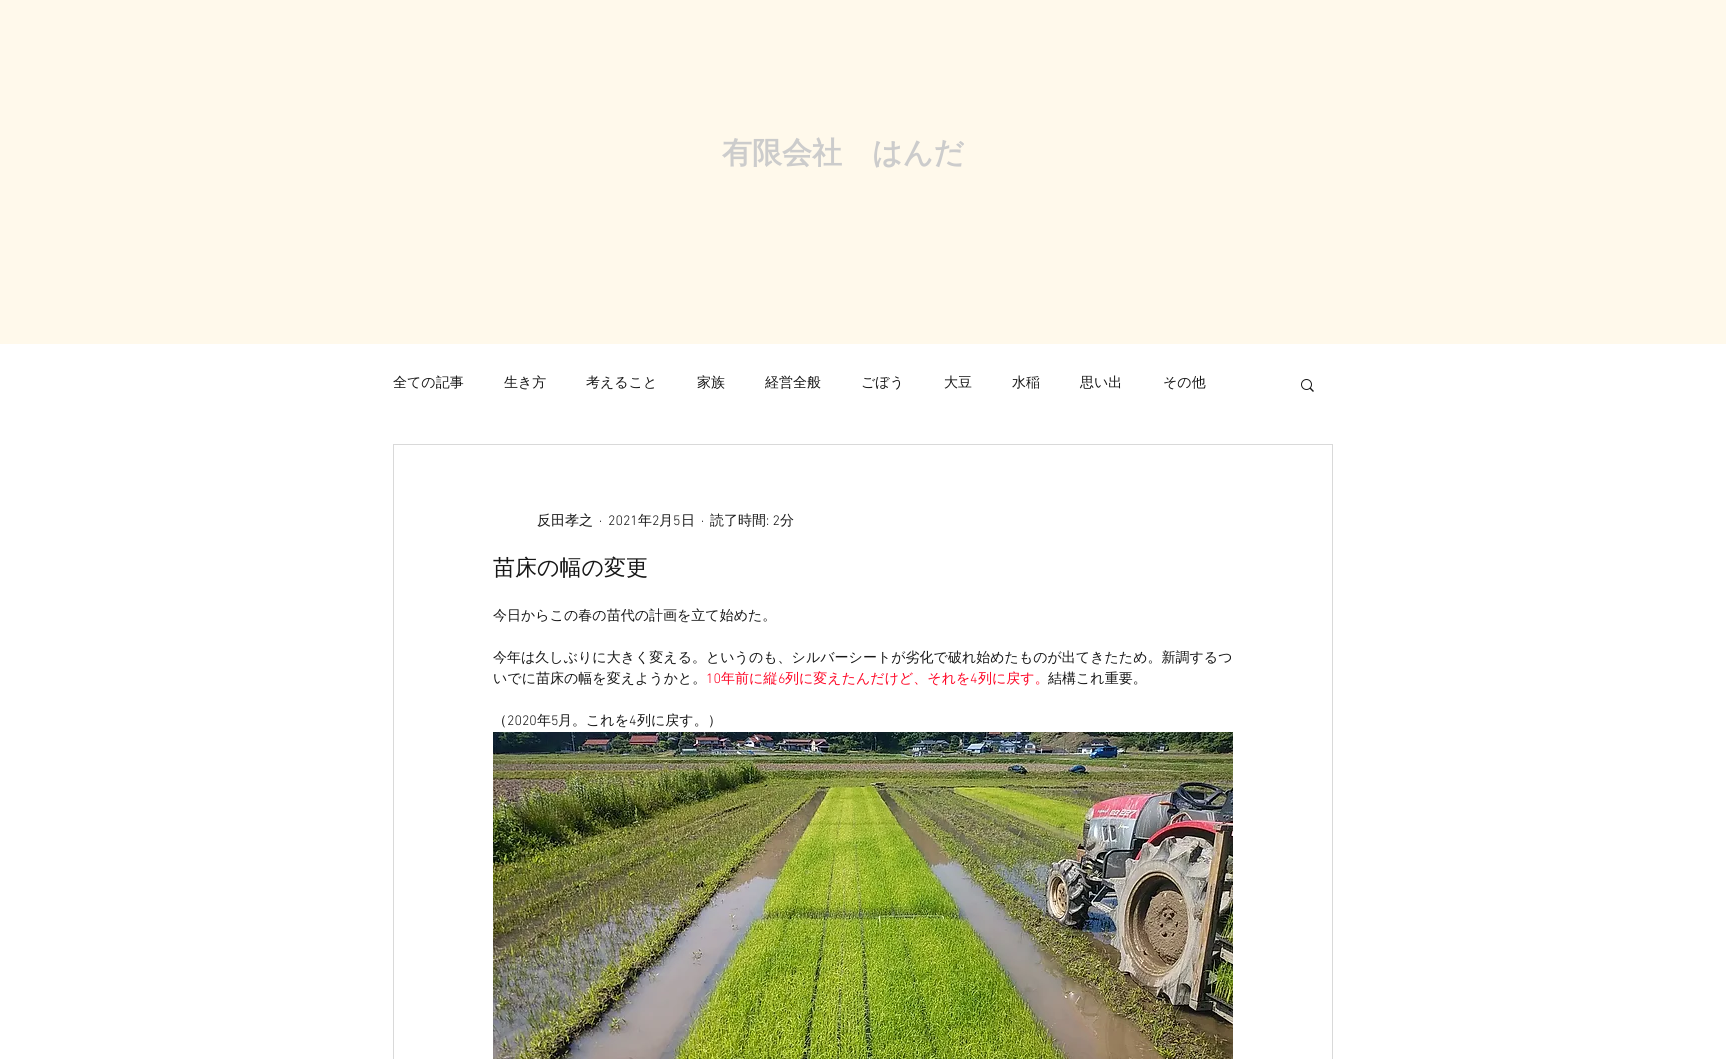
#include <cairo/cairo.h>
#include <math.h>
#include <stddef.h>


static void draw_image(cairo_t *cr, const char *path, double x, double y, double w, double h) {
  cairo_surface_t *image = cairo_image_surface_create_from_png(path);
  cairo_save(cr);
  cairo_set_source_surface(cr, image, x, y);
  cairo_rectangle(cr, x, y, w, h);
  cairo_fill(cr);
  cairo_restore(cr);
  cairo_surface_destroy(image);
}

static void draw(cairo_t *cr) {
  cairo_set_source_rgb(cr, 1, 1, 1);
  cairo_paint(cr);
  cairo_set_source_rgb(cr, 1, 249 / 255.0, 235 / 255.0);
  cairo_rectangle(cr, 0, 0, 1726, 344);
  cairo_fill(cr);
  draw_image(cr, "images/1.png", 1301, 379, 13, 13);
  cairo_rectangle(cr, 393.5, 444.5, 939, 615);
  cairo_set_source_rgb(cr, 217 / 255.0, 217 / 255.0, 217 / 255.0);
  cairo_set_line_width(cr, 1);
  cairo_stroke(cr);
  draw_image(cr, "images/2.png", 493, 732, 740, 327);
  cairo_select_font_face(cr, "WenQuanYi Zen Hei", CAIRO_FONT_SLANT_NORMAL, CAIRO_FONT_WEIGHT_BOLD);
  cairo_set_font_size(cr, 30);
  cairo_set_source_rgb(cr, 204 / 255.0, 204 / 255.0, 204 / 255.0);
  cairo_move_to(cr, 722, 163);
  cairo_show_text(cr, "有限会社　はんだ");
  cairo_select_font_face(cr, "WenQuanYi Zen Hei Medium", CAIRO_FONT_SLANT_NORMAL, CAIRO_FONT_WEIGHT_NORMAL);
  cairo_set_font_size(cr, 14);
  cairo_set_source_rgb(cr, 23 / 255.0, 23 / 255.0, 23 / 255.0);
  cairo_move_to(cr, 393, 387);
  cairo_show_text(cr, "全ての記事");
  cairo_move_to(cr, 504, 387);
  cairo_show_text(cr, "生き方");
  cairo_move_to(cr, 586, 387);
  cairo_show_text(cr, "考えること");
  cairo_move_to(cr, 697, 387);
  cairo_show_text(cr, "家族");
  cairo_move_to(cr, 765, 387);
  cairo_show_text(cr, "経営全般");
  cairo_move_to(cr, 861, 387);
  cairo_show_text(cr, "ごぼう");
  cairo_move_to(cr, 944, 387);
  cairo_show_text(cr, "大豆");
  cairo_move_to(cr, 1012, 387);
  cairo_show_text(cr, "水稲");
  cairo_move_to(cr, 1080, 387);
  cairo_show_text(cr, "思い出");
  cairo_move_to(cr, 1163, 387);
  cairo_show_text(cr, "その他");
  cairo_move_to(cr, 537, 525);
  cairo_show_text(cr, "反田孝之");
  cairo_select_font_face(cr, "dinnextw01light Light", CAIRO_FONT_SLANT_NORMAL, CAIRO_FONT_WEIGHT_NORMAL);
  cairo_move_to(cr, 599, 525);
  cairo_show_text(cr, "·");
  cairo_move_to(cr, 608, 525);
  cairo_show_text(cr, "2021");
  cairo_select_font_face(cr, "WenQuanYi Zen Hei Medium", CAIRO_FONT_SLANT_NORMAL, CAIRO_FONT_WEIGHT_NORMAL);
  cairo_move_to(cr, 638, 525);
  cairo_show_text(cr, "年");
  cairo_select_font_face(cr, "dinnextw01light Light", CAIRO_FONT_SLANT_NORMAL, CAIRO_FONT_WEIGHT_NORMAL);
  cairo_move_to(cr, 652, 525);
  cairo_show_text(cr, "2");
  cairo_select_font_face(cr, "WenQuanYi Zen Hei Medium", CAIRO_FONT_SLANT_NORMAL, CAIRO_FONT_WEIGHT_NORMAL);
  cairo_move_to(cr, 659, 525);
  cairo_show_text(cr, "月");
  cairo_select_font_face(cr, "dinnextw01light Light", CAIRO_FONT_SLANT_NORMAL, CAIRO_FONT_WEIGHT_NORMAL);
  cairo_move_to(cr, 673, 525);
  cairo_show_text(cr, "5");
  cairo_select_font_face(cr, "WenQuanYi Zen Hei Medium", CAIRO_FONT_SLANT_NORMAL, CAIRO_FONT_WEIGHT_NORMAL);
  cairo_move_to(cr, 681, 525);
  cairo_show_text(cr, "日");
  cairo_select_font_face(cr, "dinnextw01light Light", CAIRO_FONT_SLANT_NORMAL, CAIRO_FONT_WEIGHT_NORMAL);
  cairo_move_to(cr, 701, 525);
  cairo_show_text(cr, "·");
  cairo_select_font_face(cr, "WenQuanYi Zen Hei Medium", CAIRO_FONT_SLANT_NORMAL, CAIRO_FONT_WEIGHT_NORMAL);
  cairo_move_to(cr, 710, 525);
  cairo_show_text(cr, "読了時間");
  cairo_select_font_face(cr, "dinnextw01light Light", CAIRO_FONT_SLANT_NORMAL, CAIRO_FONT_WEIGHT_NORMAL);
  cairo_move_to(cr, 766, 525);
  cairo_show_text(cr, ": 2");
  cairo_select_font_face(cr, "WenQuanYi Zen Hei Medium", CAIRO_FONT_SLANT_NORMAL, CAIRO_FONT_WEIGHT_NORMAL);
  cairo_move_to(cr, 780, 525);
  cairo_show_text(cr, "分");
  cairo_set_font_size(cr, 22);
  cairo_move_to(cr, 493, 575);
  cairo_show_text(cr, "苗床の幅の変更");
  cairo_set_font_size(cr, 14);
  cairo_move_to(cr, 493, 620);
  cairo_show_text(cr, "今日からこの春の苗代の計画を立て始めた。");
  cairo_move_to(cr, 493, 662);
  cairo_show_text(cr, "今年は久しぶりに大きく変える。というのも、シルバーシートが劣化で破れ始めたものが出てきたため。新調するつ");
  cairo_move_to(cr, 493, 683);
  cairo_show_text(cr, "いでに苗床の幅を変えようかと。");
  cairo_select_font_face(cr, "dinnextw01light Light", CAIRO_FONT_SLANT_NORMAL, CAIRO_FONT_WEIGHT_NORMAL);
  cairo_set_source_rgb(cr, 254 / 255.0, 3 / 255.0, 35 / 255.0);
  cairo_move_to(cr, 706, 683);
  cairo_show_text(cr, "10");
  cairo_select_font_face(cr, "WenQuanYi Zen Hei Medium", CAIRO_FONT_SLANT_NORMAL, CAIRO_FONT_WEIGHT_NORMAL);
  cairo_move_to(cr, 721, 683);
  cairo_show_text(cr, "年前に縦");
  cairo_select_font_face(cr, "dinnextw01light Light", CAIRO_FONT_SLANT_NORMAL, CAIRO_FONT_WEIGHT_NORMAL);
  cairo_move_to(cr, 778, 683);
  cairo_show_text(cr, "6");
  cairo_select_font_face(cr, "WenQuanYi Zen Hei Medium", CAIRO_FONT_SLANT_NORMAL, CAIRO_FONT_WEIGHT_NORMAL);
  cairo_move_to(cr, 785, 683);
  cairo_show_text(cr, "列に変えたんだけど、それを");
  cairo_select_font_face(cr, "dinnextw01light Light", CAIRO_FONT_SLANT_NORMAL, CAIRO_FONT_WEIGHT_NORMAL);
  cairo_move_to(cr, 970, 683);
  cairo_show_text(cr, "4");
  cairo_select_font_face(cr, "WenQuanYi Zen Hei Medium", CAIRO_FONT_SLANT_NORMAL, CAIRO_FONT_WEIGHT_NORMAL);
  cairo_move_to(cr, 978, 683);
  cairo_show_text(cr, "列に戻す。");
  cairo_set_source_rgb(cr, 23 / 255.0, 23 / 255.0, 23 / 255.0);
  cairo_move_to(cr, 1048, 683);
  cairo_show_text(cr, "結構これ重要。");
  cairo_move_to(cr, 493, 725);
  cairo_show_text(cr, "（");
  cairo_select_font_face(cr, "dinnextw01light Light", CAIRO_FONT_SLANT_NORMAL, CAIRO_FONT_WEIGHT_NORMAL);
  cairo_move_to(cr, 507, 725);
  cairo_show_text(cr, "2020");
  cairo_select_font_face(cr, "WenQuanYi Zen Hei Medium", CAIRO_FONT_SLANT_NORMAL, CAIRO_FONT_WEIGHT_NORMAL);
  cairo_move_to(cr, 537, 725);
  cairo_show_text(cr, "年");
  cairo_select_font_face(cr, "dinnextw01light Light", CAIRO_FONT_SLANT_NORMAL, CAIRO_FONT_WEIGHT_NORMAL);
  cairo_move_to(cr, 551, 725);
  cairo_show_text(cr, "5");
  cairo_select_font_face(cr, "WenQuanYi Zen Hei Medium", CAIRO_FONT_SLANT_NORMAL, CAIRO_FONT_WEIGHT_NORMAL);
  cairo_move_to(cr, 558, 725);
  cairo_show_text(cr, "月。これを");
  cairo_select_font_face(cr, "dinnextw01light Light", CAIRO_FONT_SLANT_NORMAL, CAIRO_FONT_WEIGHT_NORMAL);
  cairo_move_to(cr, 629, 725);
  cairo_show_text(cr, "4");
  cairo_select_font_face(cr, "WenQuanYi Zen Hei Medium", CAIRO_FONT_SLANT_NORMAL, CAIRO_FONT_WEIGHT_NORMAL);
  cairo_move_to(cr, 637, 725);
  cairo_show_text(cr, "列に戻す。）");
}

int main(void) {
  cairo_surface_t *surface = cairo_image_surface_create(CAIRO_FORMAT_RGB24, 1726, 1059);
  cairo_t *cr = cairo_create(surface);
  cairo_font_options_t *options = cairo_font_options_create();
  cairo_font_options_set_hint_metrics(options, CAIRO_HINT_METRICS_OFF);
  cairo_font_options_set_hint_style(options, CAIRO_HINT_STYLE_NONE);
  cairo_set_font_options(cr, options);
  cairo_set_miter_limit(cr, 4);
  draw(cr);
  cairo_surface_write_to_png(surface, "out.png");
  cairo_font_options_destroy(options);
  cairo_destroy(cr);
  cairo_surface_destroy(surface);
  return 0;
}
